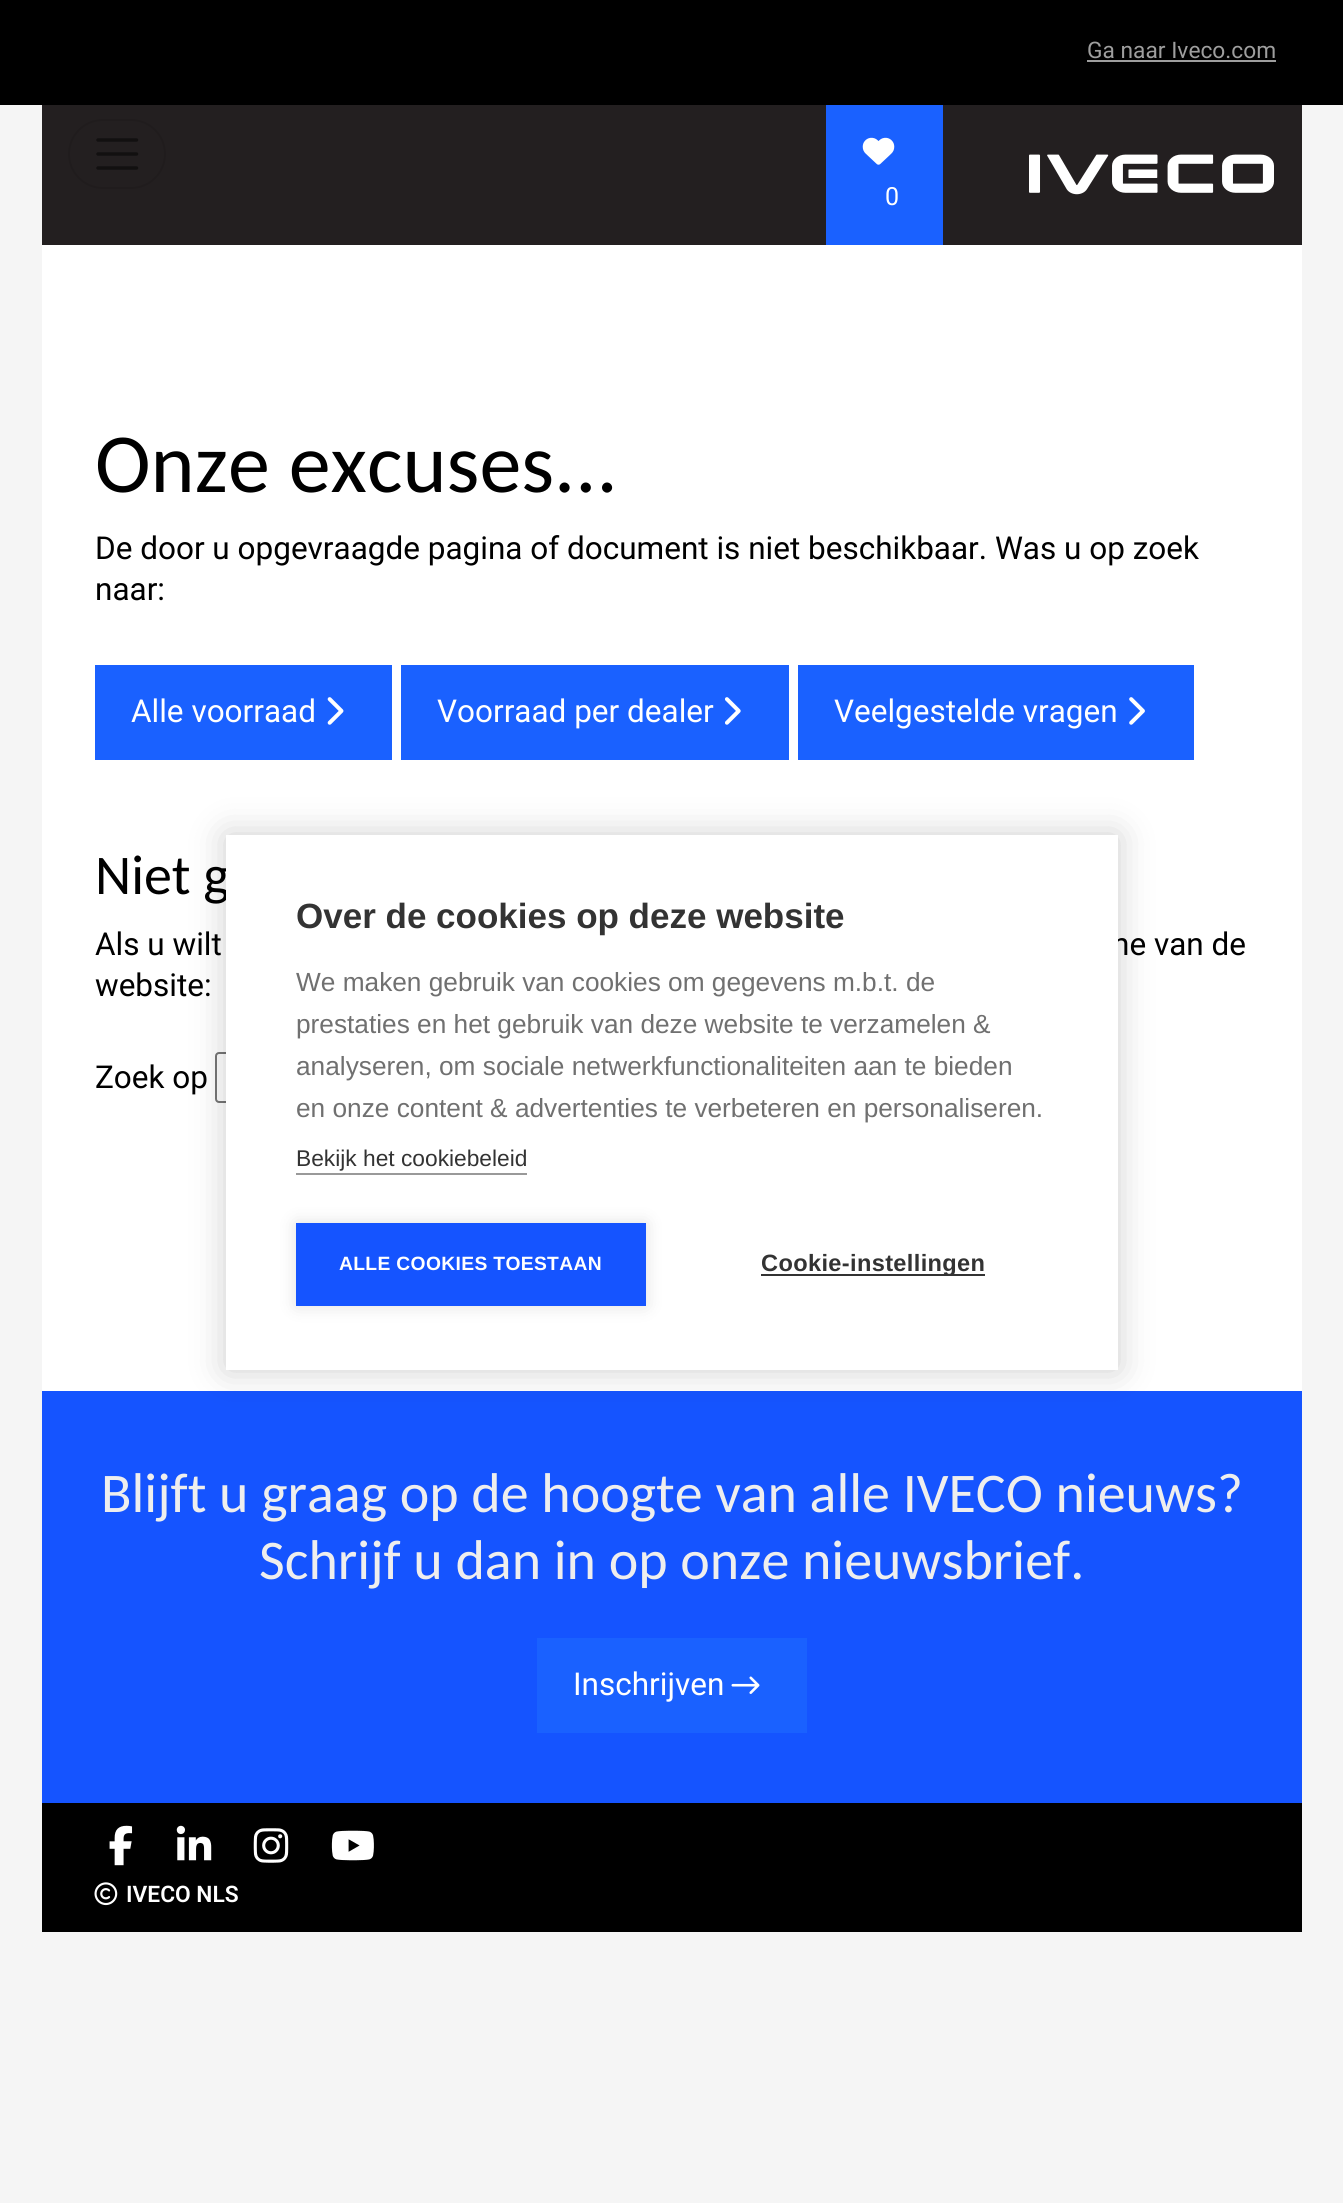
#include <cairo/cairo.h>
#include <math.h>
#include <stddef.h>


static void draw_spaced(cairo_t *cr, double x, double y, const char *s, double letter, double word) {
  cairo_move_to(cr, x, y);
  while (*s) {
    char ch[5] = {0};
    int n = 0;
    do ch[n++] = *s++; while ((*s & 0xC0) == 0x80);
    cairo_show_text(cr, ch);
    cairo_rel_move_to(cr, letter + word * (*ch == ' '), 0);
  }
}

static void rounded_rect(cairo_t *cr, double x, double y, double w, double h, double r) {
  cairo_new_sub_path(cr);
  cairo_arc(cr, x + w - r, y + h - r, r, 0, M_PI / 2);
  cairo_arc(cr, x + r, y + h - r, r, M_PI / 2, M_PI);
  cairo_arc(cr, x + r, y + r, r, M_PI, 1.5 * M_PI);
  cairo_arc(cr, x + w - r, y + r, r, 1.5 * M_PI, 2 * M_PI);
  cairo_close_path(cr);
}

static void draw_shadow(cairo_t *cr, double x, double y, double w, double h, double r, double blur, double alpha) {
  cairo_push_group_with_content(cr, CAIRO_CONTENT_ALPHA);
  cairo_set_operator(cr, CAIRO_OPERATOR_SOURCE);
  for (int i = 15; i >= -15 && fmin(w, h) + blur * i / 3 > 0; i -= 2) {
    double e = blur * i / 6;
    cairo_set_source_rgba(cr, 0, 0, 0, alpha * erfc((i - 1) / 8.5) / 2);
    rounded_rect(cr, x - e, y - e, w + 2 * e, h + 2 * e, fmax(0, fmin(r + e + blur * .6, fmin(w, h) / 2 + e)));
    cairo_fill(cr);
  }
  cairo_pattern_t *soft = cairo_pop_group(cr);
  cairo_mask(cr, soft);
  cairo_pattern_destroy(soft);
}

static void draw_image(cairo_t *cr, const char *path, double x, double y, double w, double h) {
  cairo_surface_t *image = cairo_image_surface_create_from_png(path);
  cairo_save(cr);
  cairo_set_source_surface(cr, image, x, y);
  cairo_rectangle(cr, x, y, w, h);
  cairo_fill(cr);
  cairo_restore(cr);
  cairo_surface_destroy(image);
}

static void draw(cairo_t *cr) {
  cairo_set_source_rgb(cr, 245 / 255.0, 245 / 255.0, 245 / 255.0);
  cairo_paint(cr);
  cairo_set_source_rgb(cr, 0, 0, 0);
  cairo_rectangle(cr, 0, 0, 1343, 105);
  cairo_fill(cr);
  cairo_set_source_rgb(cr, 158 / 255.0, 158 / 255.0, 158 / 255.0);
  cairo_rectangle(cr, 1087, 60, 189, 2);
  cairo_fill(cr);
  cairo_set_source_rgb(cr, 35 / 255.0, 31 / 255.0, 32 / 255.0);
  cairo_rectangle(cr, 42, 105, 784, 140);
  cairo_fill(cr);
  rounded_rect(cr, 69, 120, 96, 68, 34);
  cairo_set_source_rgb(cr, 32 / 255.0, 28 / 255.0, 29 / 255.0);
  cairo_stroke(cr);
  cairo_new_path(cr);
  cairo_move_to(cr, 98, 140);
  cairo_line_to(cr, 136.5, 140);
  cairo_move_to(cr, 98, 154);
  cairo_line_to(cr, 136.5, 154);
  cairo_move_to(cr, 98, 168);
  cairo_line_to(cr, 136.5, 168);
  cairo_set_source_rgb(cr, 18 / 255.0, 16 / 255.0, 16 / 255.0);
  cairo_set_line_width(cr, 3.5);
  cairo_set_line_cap(cr, CAIRO_LINE_CAP_ROUND);
  cairo_stroke(cr);
  cairo_set_source_rgb(cr, 35 / 255.0, 31 / 255.0, 32 / 255.0);
  cairo_rectangle(cr, 943, 105, 359, 140);
  cairo_fill(cr);
  cairo_set_source_rgb(cr, 26 / 255.0, 97 / 255.0, 1);
  cairo_rectangle(cr, 826, 105, 117, 140);
  cairo_fill(cr);
  draw_image(cr, "images/1.png", 862, 137, 33, 28);
  draw_image(cr, "images/2.png", 1029, 154, 245, 41);
  cairo_set_source_rgb(cr, 1, 1, 1);
  cairo_rectangle(cr, 42, 245, 1260, 1146);
  cairo_fill(cr);
  cairo_set_source_rgb(cr, 26 / 255.0, 97 / 255.0, 1);
  cairo_rectangle(cr, 95, 665, 297, 95);
  cairo_fill(cr);
  draw_image(cr, "images/3.png", 327, 697, 17, 28);
  cairo_rectangle(cr, 401, 665, 388, 95);
  cairo_fill(cr);
  draw_image(cr, "images/4.png", 725, 697, 16, 28);
  cairo_rectangle(cr, 798, 665, 396, 95);
  cairo_fill(cr);
  draw_image(cr, "images/5.png", 1129, 697, 16, 28);
  rounded_rect(cr, 216, 1053, 411, 49, 3);
  cairo_set_source_rgb(cr, 118 / 255.0, 118 / 255.0, 118 / 255.0);
  cairo_set_line_width(cr, 2);
  cairo_set_line_cap(cr, CAIRO_LINE_CAP_BUTT);
  cairo_stroke(cr);
  cairo_set_source_rgb(cr, 21 / 255.0, 84 / 255.0, 1);
  cairo_rectangle(cr, 42, 1391, 1260, 412);
  cairo_fill(cr);
  cairo_set_source_rgb(cr, 0, 0, 0);
  draw_shadow(cr, 226, 835, 892, 535, 0, 17.5, 0.2);
  cairo_set_source_rgb(cr, 26 / 255.0, 97 / 255.0, 1);
  cairo_rectangle(cr, 537, 1638, 270, 95);
  cairo_fill(cr);
  draw_image(cr, "images/6.png", 731, 1676, 29, 18);
  cairo_set_source_rgb(cr, 0, 0, 0);
  cairo_rectangle(cr, 42, 1803, 1260, 129);
  cairo_fill(cr);
  draw_image(cr, "images/7.png", 109, 1825, 24, 41);
  draw_image(cr, "images/8.png", 176, 1825, 36, 36);
  draw_image(cr, "images/9.png", 253, 1828, 36, 35);
  draw_image(cr, "images/10.png", 331, 1830, 43, 31);
  draw_image(cr, "images/11.png", 94, 1882, 24, 24);
  cairo_select_font_face(cr, "Roboto", CAIRO_FONT_SLANT_NORMAL, CAIRO_FONT_WEIGHT_NORMAL);
  cairo_set_font_size(cr, 22.75);
  cairo_set_source_rgb(cr, 158 / 255.0, 158 / 255.0, 158 / 255.0);
  cairo_move_to(cr, 1087, 58);
  cairo_show_text(cr, "Ga naar Iveco.com");
  cairo_set_font_size(cr, 25);
  cairo_set_source_rgb(cr, 1, 1, 1);
  cairo_move_to(cr, 885, 205);
  cairo_show_text(cr, "0");
  cairo_select_font_face(cr, "Carlito", CAIRO_FONT_SLANT_NORMAL, CAIRO_FONT_WEIGHT_NORMAL);
  cairo_set_font_size(cr, 84);
  cairo_set_source_rgb(cr, 0, 0, 0);
  cairo_move_to(cr, 95, 492);
  cairo_show_text(cr, "Onze excuses...");
  cairo_select_font_face(cr, "Roboto", CAIRO_FONT_SLANT_NORMAL, CAIRO_FONT_WEIGHT_NORMAL);
  cairo_set_font_size(cr, 31.5);
  cairo_move_to(cr, 95, 559);
  cairo_show_text(cr, "De door u opgevraagde pagina of document is niet beschikbaar. Was u op zoek");
  cairo_move_to(cr, 95, 600);
  cairo_show_text(cr, "naar:");
  cairo_set_source_rgb(cr, 1, 1, 1);
  cairo_move_to(cr, 131, 722);
  cairo_show_text(cr, "Alle voorraad");
  cairo_move_to(cr, 437, 722);
  cairo_show_text(cr, "Voorraad per dealer");
  cairo_move_to(cr, 834, 722);
  cairo_show_text(cr, "Veelgestelde vragen");
  cairo_select_font_face(cr, "Carlito", CAIRO_FONT_SLANT_NORMAL, CAIRO_FONT_WEIGHT_NORMAL);
  cairo_set_font_size(cr, 56);
  cairo_set_source_rgb(cr, 0, 0, 0);
  cairo_move_to(cr, 95, 894);
  cairo_show_text(cr, "Niet g");
  cairo_select_font_face(cr, "Roboto", CAIRO_FONT_SLANT_NORMAL, CAIRO_FONT_WEIGHT_NORMAL);
  cairo_set_font_size(cr, 31.5);
  cairo_move_to(cr, 95, 955);
  cairo_show_text(cr, "Als u wilt");
  cairo_move_to(cr, 1112, 955);
  cairo_show_text(cr, "ne van de");
  cairo_move_to(cr, 95, 996);
  cairo_show_text(cr, "website:");
  cairo_move_to(cr, 95, 1088);
  cairo_show_text(cr, "Zoek op");
  cairo_set_source_rgb(cr, 1, 1, 1);
  cairo_rectangle(cr, 226, 835, 892, 535);
  cairo_fill(cr);
  cairo_select_font_face(cr, "Liberation Sans", CAIRO_FONT_SLANT_NORMAL, CAIRO_FONT_WEIGHT_BOLD);
  cairo_set_font_size(cr, 35);
  cairo_set_source_rgb(cr, 51 / 255.0, 51 / 255.0, 51 / 255.0);
  cairo_move_to(cr, 296, 928);
  cairo_show_text(cr, "Over de cookies op deze website");
  cairo_select_font_face(cr, "Liberation Sans", CAIRO_FONT_SLANT_NORMAL, CAIRO_FONT_WEIGHT_NORMAL);
  cairo_set_font_size(cr, 26.25);
  cairo_set_source_rgb(cr, 112 / 255.0, 112 / 255.0, 112 / 255.0);
  cairo_move_to(cr, 296, 991);
  cairo_show_text(cr, "We maken gebruik van cookies om gegevens m.b.t. de");
  cairo_move_to(cr, 296, 1033);
  cairo_show_text(cr, "prestaties en het gebruik van deze website te verzamelen &");
  cairo_move_to(cr, 296, 1075);
  cairo_show_text(cr, "analyseren, om sociale netwerkfunctionaliteiten aan te bieden");
  cairo_move_to(cr, 296, 1117);
  cairo_show_text(cr, "en onze content & advertenties te verbeteren en personaliseren.");
  cairo_set_font_size(cr, 22.75);
  cairo_set_source_rgb(cr, 51 / 255.0, 51 / 255.0, 51 / 255.0);
  cairo_move_to(cr, 296, 1166);
  cairo_show_text(cr, "Bekijk het cookiebeleid");
  cairo_set_source_rgb(cr, 153 / 255.0, 153 / 255.0, 153 / 255.0);
  cairo_rectangle(cr, 296, 1173, 231, 2);
  cairo_fill(cr);
  cairo_set_source_rgb(cr, 0, 0, 0);
  draw_shadow(cr, 296, 1223, 350, 83, 0, 9, 0.12);
  cairo_set_source_rgb(cr, 21 / 255.0, 84 / 255.0, 1);
  cairo_rectangle(cr, 296, 1223, 350, 83);
  cairo_fill(cr);
  cairo_select_font_face(cr, "Liberation Sans", CAIRO_FONT_SLANT_NORMAL, CAIRO_FONT_WEIGHT_BOLD);
  cairo_set_font_size(cr, 19.25);
  cairo_set_source_rgb(cr, 1, 1, 1);
  draw_spaced(cr, 339, 1270, "ALLE COOKIES TOESTAAN", 0.35, 0);
  cairo_set_source_rgb(cr, 51 / 255.0, 51 / 255.0, 51 / 255.0);
  cairo_rectangle(cr, 761, 1274, 224, 2);
  cairo_fill(cr);
  cairo_set_font_size(cr, 23.6);
  draw_spaced(cr, 761, 1271, "Cookie-instellingen", 0.35, 0);
  cairo_select_font_face(cr, "Carlito", CAIRO_FONT_SLANT_NORMAL, CAIRO_FONT_WEIGHT_NORMAL);
  cairo_set_font_size(cr, 56);
  cairo_set_source_rgb(cr, 238 / 255.0, 238 / 255.0, 238 / 255.0);
  cairo_move_to(cr, 101, 1512);
  cairo_show_text(cr, "Blijft u graag op de hoogte van alle IVECO nieuws?");
  cairo_move_to(cr, 259, 1579);
  cairo_show_text(cr, "Schrijf u dan in op onze nieuwsbrief.");
  cairo_select_font_face(cr, "Roboto", CAIRO_FONT_SLANT_NORMAL, CAIRO_FONT_WEIGHT_NORMAL);
  cairo_set_font_size(cr, 31.5);
  cairo_set_source_rgb(cr, 1, 1, 1);
  cairo_move_to(cr, 573, 1695);
  cairo_show_text(cr, "Inschrijven");
  cairo_select_font_face(cr, "Roboto SemiBold", CAIRO_FONT_SLANT_NORMAL, CAIRO_FONT_WEIGHT_NORMAL);
  cairo_set_font_size(cr, 22.75);
  cairo_move_to(cr, 126, 1902);
  cairo_show_text(cr, "IVECO NLS");
}

int main(void) {
  cairo_surface_t *surface = cairo_image_surface_create(CAIRO_FORMAT_RGB24, 1343, 2203);
  cairo_t *cr = cairo_create(surface);
  cairo_font_options_t *options = cairo_font_options_create();
  cairo_font_options_set_hint_metrics(options, CAIRO_HINT_METRICS_OFF);
  cairo_font_options_set_hint_style(options, CAIRO_HINT_STYLE_NONE);
  cairo_set_font_options(cr, options);
  cairo_set_miter_limit(cr, 4);
  draw(cr);
  cairo_surface_write_to_png(surface, "out.png");
  cairo_font_options_destroy(options);
  cairo_destroy(cr);
  cairo_surface_destroy(surface);
  return 0;
}
